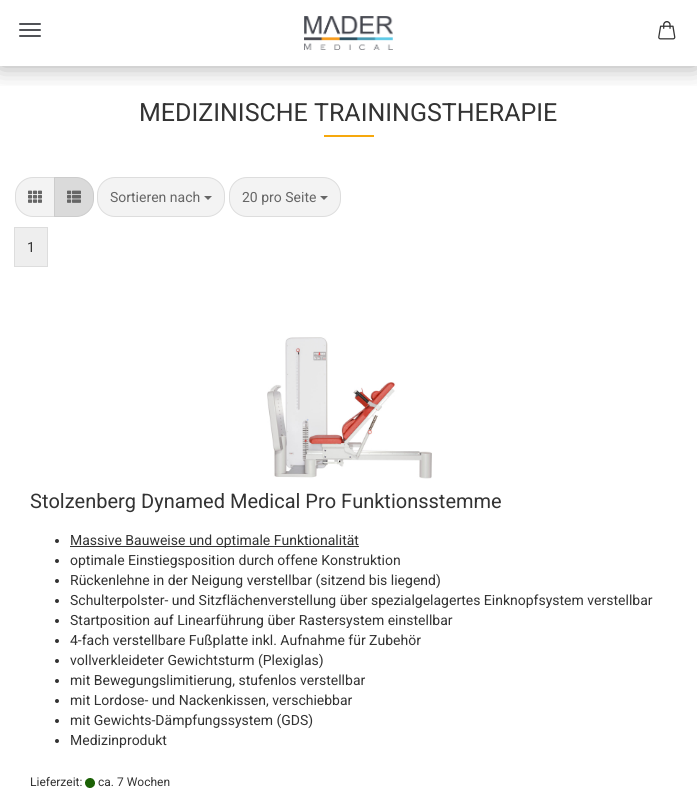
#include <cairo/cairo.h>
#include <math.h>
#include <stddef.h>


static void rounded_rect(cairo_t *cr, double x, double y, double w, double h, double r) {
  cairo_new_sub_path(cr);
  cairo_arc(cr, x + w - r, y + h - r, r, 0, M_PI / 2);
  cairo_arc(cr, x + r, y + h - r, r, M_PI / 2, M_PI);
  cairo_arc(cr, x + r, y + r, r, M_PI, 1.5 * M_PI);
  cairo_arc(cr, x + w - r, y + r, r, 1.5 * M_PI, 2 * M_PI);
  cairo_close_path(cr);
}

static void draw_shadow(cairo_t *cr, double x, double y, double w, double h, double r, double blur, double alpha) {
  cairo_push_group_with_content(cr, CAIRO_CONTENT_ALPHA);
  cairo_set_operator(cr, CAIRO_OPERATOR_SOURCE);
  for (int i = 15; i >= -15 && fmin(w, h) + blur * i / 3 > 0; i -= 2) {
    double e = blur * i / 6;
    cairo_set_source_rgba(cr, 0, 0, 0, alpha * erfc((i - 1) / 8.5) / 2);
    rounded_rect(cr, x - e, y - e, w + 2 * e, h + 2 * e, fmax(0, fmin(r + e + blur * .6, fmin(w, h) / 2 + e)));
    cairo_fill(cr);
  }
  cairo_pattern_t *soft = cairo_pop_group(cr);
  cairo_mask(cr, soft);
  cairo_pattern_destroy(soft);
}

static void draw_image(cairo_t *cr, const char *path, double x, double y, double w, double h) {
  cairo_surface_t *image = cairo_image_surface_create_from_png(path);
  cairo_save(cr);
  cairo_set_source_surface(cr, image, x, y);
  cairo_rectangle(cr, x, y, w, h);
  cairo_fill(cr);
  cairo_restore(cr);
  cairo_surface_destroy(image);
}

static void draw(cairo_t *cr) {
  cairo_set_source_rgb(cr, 1, 1, 1);
  cairo_paint(cr);
  cairo_save(cr);
  cairo_rectangle(cr, 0, 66, 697, 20);
  cairo_clip(cr);
  cairo_set_source_rgb(cr, 0, 0, 0);
  draw_shadow(cr, 0, 0, 697, 66, 0, 12.5, 0.35);
  cairo_restore(cr);
  draw_image(cr, "images/1.png", 304, 16, 89, 34);
  draw_image(cr, "images/2.png", 658, 21, 18, 19);
  cairo_set_source_rgb(cr, 80 / 255.0, 82 / 255.0, 87 / 255.0);
  rounded_rect(cr, 19, 29, 22, 2, 1);
  cairo_fill(cr);
  rounded_rect(cr, 19, 23, 22, 2, 1);
  cairo_fill(cr);
  rounded_rect(cr, 19, 35, 22, 2, 1);
  cairo_fill(cr);
  cairo_set_source_rgb(cr, 246 / 255.0, 168 / 255.0, 13 / 255.0);
  cairo_rectangle(cr, 324, 135, 50, 2);
  cairo_fill(cr);
  cairo_set_source_rgb(cr, 243 / 255.0, 243 / 255.0, 243 / 255.0);
  cairo_new_path(cr);
  cairo_move_to(cr, 33, 177.5);
  cairo_line_to(cr, 54.5, 177.5);
  cairo_line_to(cr, 54.5, 216.5);
  cairo_line_to(cr, 33, 216.5);
  cairo_curve_to(cr, 23.5, 216.5, 15.5, 208.5, 15.5, 199);
  cairo_line_to(cr, 15.5, 195);
  cairo_curve_to(cr, 15.5, 185.5, 23.5, 177.5, 33, 177.5);
  cairo_close_path(cr);
  cairo_fill_preserve(cr);
  cairo_set_source_rgb(cr, 221 / 255.0, 221 / 255.0, 221 / 255.0);
  cairo_set_line_width(cr, 1);
  cairo_stroke(cr);
  draw_image(cr, "images/3.png", 28, 190, 14, 13);
  cairo_set_source_rgb(cr, 218 / 255.0, 218 / 255.0, 218 / 255.0);
  cairo_new_path(cr);
  cairo_move_to(cr, 54.5, 177.5);
  cairo_line_to(cr, 76, 177.5);
  cairo_curve_to(cr, 85.5, 177.5, 93.5, 185.5, 93.5, 195);
  cairo_line_to(cr, 93.5, 199);
  cairo_curve_to(cr, 93.5, 208.5, 85.5, 216.5, 76, 216.5);
  cairo_line_to(cr, 54.5, 216.5);
  cairo_close_path(cr);
  cairo_fill_preserve(cr);
  cairo_set_source_rgb(cr, 204 / 255.0, 204 / 255.0, 204 / 255.0);
  cairo_stroke(cr);
  draw_image(cr, "images/4.png", 67, 190, 14, 13);
  cairo_set_source_rgb(cr, 243 / 255.0, 243 / 255.0, 243 / 255.0);
  rounded_rect(cr, 97.5, 177.5, 127, 39, 17.5);
  cairo_fill_preserve(cr);
  cairo_set_source_rgb(cr, 221 / 255.0, 221 / 255.0, 221 / 255.0);
  cairo_stroke(cr);
  cairo_set_source_rgb(cr, 102 / 255.0, 102 / 255.0, 102 / 255.0);
  cairo_new_path(cr);
  cairo_move_to(cr, 204, 196);
  cairo_line_to(cr, 212, 196);
  cairo_line_to(cr, 208, 200);
  cairo_close_path(cr);
  cairo_fill(cr);
  cairo_set_source_rgb(cr, 243 / 255.0, 243 / 255.0, 243 / 255.0);
  rounded_rect(cr, 229.5, 177.5, 111, 39, 17.5);
  cairo_fill_preserve(cr);
  cairo_set_source_rgb(cr, 221 / 255.0, 221 / 255.0, 221 / 255.0);
  cairo_stroke(cr);
  cairo_set_source_rgb(cr, 102 / 255.0, 102 / 255.0, 102 / 255.0);
  cairo_new_path(cr);
  cairo_move_to(cr, 320, 196);
  cairo_line_to(cr, 328, 196);
  cairo_line_to(cr, 324, 200);
  cairo_close_path(cr);
  cairo_fill(cr);
  cairo_set_source_rgb(cr, 238 / 255.0, 238 / 255.0, 238 / 255.0);
  cairo_rectangle(cr, 14.5, 227.5, 33, 39);
  cairo_fill_preserve(cr);
  cairo_set_source_rgb(cr, 221 / 255.0, 221 / 255.0, 221 / 255.0);
  cairo_stroke(cr);
  draw_image(cr, "images/5.png", 267, 337, 165, 142);
  cairo_set_source_rgb(cr, 51 / 255.0, 51 / 255.0, 51 / 255.0);
  cairo_arc(cr, 57, 541, 2, 0, 2 * M_PI);
  cairo_fill(cr);
  cairo_rectangle(cr, 70, 546, 289, 1);
  cairo_fill(cr);
  cairo_arc(cr, 57, 561, 2, 0, 2 * M_PI);
  cairo_fill(cr);
  cairo_arc(cr, 57, 581, 2, 0, 2 * M_PI);
  cairo_fill(cr);
  cairo_arc(cr, 57, 601, 2, 0, 2 * M_PI);
  cairo_fill(cr);
  cairo_arc(cr, 57, 621, 2, 0, 2 * M_PI);
  cairo_fill(cr);
  cairo_arc(cr, 57, 641, 2, 0, 2 * M_PI);
  cairo_fill(cr);
  cairo_arc(cr, 57, 661, 2, 0, 2 * M_PI);
  cairo_fill(cr);
  cairo_arc(cr, 57, 681, 2, 0, 2 * M_PI);
  cairo_fill(cr);
  cairo_arc(cr, 57, 701, 2, 0, 2 * M_PI);
  cairo_fill(cr);
  cairo_arc(cr, 57, 721, 2, 0, 2 * M_PI);
  cairo_fill(cr);
  cairo_arc(cr, 57, 741, 2, 0, 2 * M_PI);
  cairo_fill(cr);
  draw_image(cr, "images/6.png", 85, 778, 10, 10);
  cairo_select_font_face(cr, "Roboto", CAIRO_FONT_SLANT_NORMAL, CAIRO_FONT_WEIGHT_NORMAL);
  cairo_set_font_size(cr, 25);
  cairo_move_to(cr, 139, 121);
  cairo_show_text(cr, "MEDIZINISCHE TRAININGSTHERAPIE");
  cairo_set_font_size(cr, 14);
  cairo_set_source_rgb(cr, 102 / 255.0, 102 / 255.0, 102 / 255.0);
  cairo_move_to(cr, 110, 202);
  cairo_show_text(cr, "Sortieren nach");
  cairo_move_to(cr, 242, 202);
  cairo_show_text(cr, "20 pro Seite");
  cairo_set_source_rgb(cr, 51 / 255.0, 51 / 255.0, 51 / 255.0);
  cairo_move_to(cr, 27, 252);
  cairo_show_text(cr, "1");
  cairo_set_font_size(cr, 20);
  cairo_move_to(cr, 30, 508);
  cairo_show_text(cr, "Stolzenberg Dynamed Medical Pro Funktionsstemme");
  cairo_set_font_size(cr, 14);
  cairo_move_to(cr, 70, 545);
  cairo_show_text(cr, "Massive Bauweise und optimale Funktionalität");
  cairo_move_to(cr, 70, 565);
  cairo_show_text(cr, "optimale Einstiegsposition durch offene Konstruktion");
  cairo_move_to(cr, 70, 585);
  cairo_show_text(cr, "Rückenlehne in der Neigung verstellbar (sitzend bis liegend)");
  cairo_move_to(cr, 70, 605);
  cairo_show_text(cr, "Schulterpolster- und Sitzflächenverstellung über spezialgelagertes Einknopfsystem verstellbar");
  cairo_move_to(cr, 70, 625);
  cairo_show_text(cr, "Startposition auf Linearführung über Rastersystem einstellbar");
  cairo_move_to(cr, 70, 645);
  cairo_show_text(cr, "4-fach verstellbare Fußplatte inkl. Aufnahme für Zubehör");
  cairo_move_to(cr, 70, 665);
  cairo_show_text(cr, "vollverkleideter Gewichtsturm (Plexiglas)");
  cairo_move_to(cr, 70, 685);
  cairo_show_text(cr, "mit Bewegungslimitierung, stufenlos verstellbar");
  cairo_move_to(cr, 70, 705);
  cairo_show_text(cr, "mit Lordose- und Nackenkissen, verschiebbar");
  cairo_move_to(cr, 70, 725);
  cairo_show_text(cr, "mit Gewichts-Dämpfungssystem (GDS)");
  cairo_move_to(cr, 70, 745);
  cairo_show_text(cr, "Medizinprodukt");
  cairo_set_font_size(cr, 12);
  cairo_move_to(cr, 30, 786);
  cairo_show_text(cr, "Lieferzeit:");
  cairo_move_to(cr, 98, 786);
  cairo_show_text(cr, "ca. 7 Wochen");
}

int main(void) {
  cairo_surface_t *surface = cairo_image_surface_create(CAIRO_FORMAT_RGB24, 697, 812);
  cairo_t *cr = cairo_create(surface);
  cairo_font_options_t *options = cairo_font_options_create();
  cairo_font_options_set_hint_metrics(options, CAIRO_HINT_METRICS_OFF);
  cairo_font_options_set_hint_style(options, CAIRO_HINT_STYLE_NONE);
  cairo_set_font_options(cr, options);
  cairo_set_miter_limit(cr, 4);
  draw(cr);
  cairo_surface_write_to_png(surface, "out.png");
  cairo_font_options_destroy(options);
  cairo_destroy(cr);
  cairo_surface_destroy(surface);
  return 0;
}
